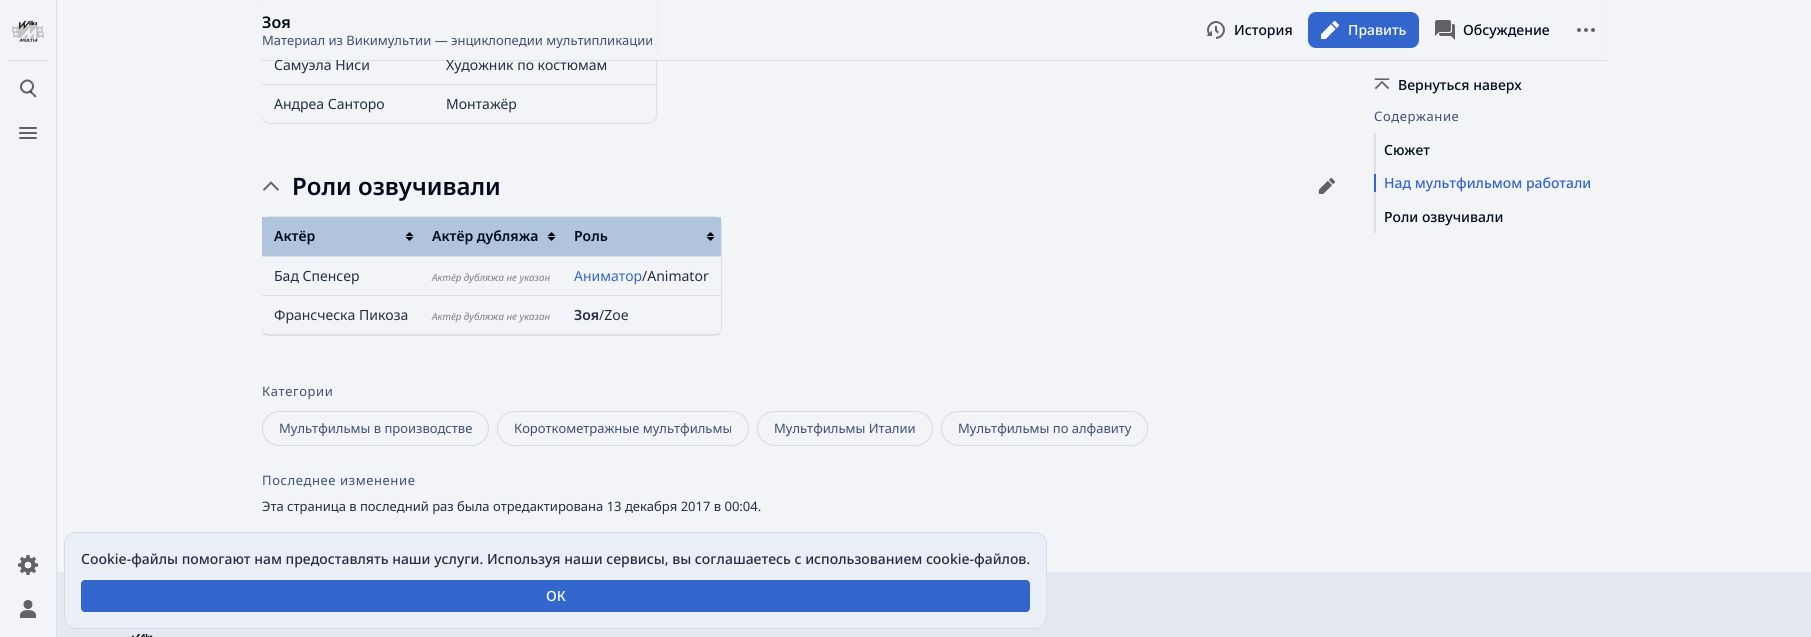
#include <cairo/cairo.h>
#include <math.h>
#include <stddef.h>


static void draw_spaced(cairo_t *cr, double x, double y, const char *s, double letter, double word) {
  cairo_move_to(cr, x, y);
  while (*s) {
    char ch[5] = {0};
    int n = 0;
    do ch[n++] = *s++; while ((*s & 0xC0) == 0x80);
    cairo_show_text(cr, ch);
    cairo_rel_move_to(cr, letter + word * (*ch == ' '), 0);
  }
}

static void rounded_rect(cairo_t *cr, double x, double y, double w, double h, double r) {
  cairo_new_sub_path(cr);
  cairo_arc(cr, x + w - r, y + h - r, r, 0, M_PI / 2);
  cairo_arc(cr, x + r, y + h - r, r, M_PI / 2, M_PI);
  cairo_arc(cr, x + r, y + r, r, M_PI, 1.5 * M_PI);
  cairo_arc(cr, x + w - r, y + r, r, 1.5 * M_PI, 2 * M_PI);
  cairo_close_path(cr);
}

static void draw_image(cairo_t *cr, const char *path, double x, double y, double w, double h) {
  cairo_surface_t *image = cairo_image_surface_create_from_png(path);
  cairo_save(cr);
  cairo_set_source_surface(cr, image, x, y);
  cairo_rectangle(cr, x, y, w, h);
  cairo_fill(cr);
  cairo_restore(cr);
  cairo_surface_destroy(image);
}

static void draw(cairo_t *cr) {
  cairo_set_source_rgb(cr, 242 / 255.0, 244 / 255.0, 248 / 255.0);
  cairo_paint(cr);
  cairo_set_source_rgb(cr, 223 / 255.0, 224 / 255.0, 228 / 255.0);
  cairo_rectangle(cr, 56, 0, 1, 637);
  cairo_fill(cr);
  cairo_rectangle(cr, 8, 60, 40, 1);
  cairo_fill(cr);
  draw_image(cr, "images/1.png", 12, 20, 32, 22);
  cairo_set_source_rgb(cr, 97 / 255.0, 98 / 255.0, 99 / 255.0);
  cairo_new_path(cr);
  cairo_move_to(cr, 30, 91);
  cairo_curve_to(cr, 31.5, 90, 33, 92.5, 33.5, 93.5);
  cairo_curve_to(cr, 34.5, 94, 37, 95.5, 36, 97);
  cairo_curve_to(cr, 34.5, 98, 33, 95.5, 32.5, 94.5);
  cairo_curve_to(cr, 31.5, 94, 29, 92.5, 30, 91);
  cairo_close_path(cr);
  cairo_fill(cr);
  cairo_new_path(cr);
  cairo_move_to(cr, 23, 82.5);
  cairo_curve_to(cr, 28.5, 76.5, 37, 85, 31, 90.5);
  cairo_curve_to(cr, 25.5, 96.5, 17, 88, 23, 82.5);
  cairo_close_path(cr);
  cairo_set_source_rgba(cr, 0, 0, 0, 0.6);
  cairo_stroke(cr);
  cairo_set_source_rgb(cr, 97 / 255.0, 98 / 255.0, 99 / 255.0);
  rounded_rect(cr, 19, 127, 18, 2, 1);
  cairo_fill(cr);
  rounded_rect(cr, 19, 132, 18, 2, 1);
  cairo_fill(cr);
  rounded_rect(cr, 19, 137, 18, 2, 1);
  cairo_fill(cr);
  draw_image(cr, "images/2.png", 18, 555, 20, 20);
  draw_image(cr, "images/3.png", 20, 600, 16, 18);
  cairo_save(cr);
  cairo_rectangle(cr, 262, 0, 1080, 351);
  cairo_clip(cr);
  rounded_rect(cr, 261.5, -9.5, 395, 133, 8.5);
  cairo_set_source_rgb(cr, 223 / 255.0, 224 / 255.0, 228 / 255.0);
  cairo_set_line_width(cr, 1);
  cairo_stroke(cr);
  cairo_restore(cr);
  cairo_set_source_rgb(cr, 223 / 255.0, 224 / 255.0, 228 / 255.0);
  cairo_rectangle(cr, 262, 5, 394, 1);
  cairo_fill(cr);
  cairo_rectangle(cr, 262, 45, 394, 1);
  cairo_fill(cr);
  cairo_rectangle(cr, 262, 84, 394, 1);
  cairo_fill(cr);
  draw_image(cr, "images/8.png", 263, 181, 16, 10);
  draw_image(cr, "images/9.png", 1318, 177, 17, 17);
  cairo_save(cr);
  cairo_rectangle(cr, 262, 0, 1080, 351);
  cairo_clip(cr);
  rounded_rect(cr, 261.5, 216.5, 460, 119, 8.5);
  cairo_set_line_width(cr, 1);
  cairo_stroke(cr);
  cairo_restore(cr);
  cairo_set_source_rgb(cr, 176 / 255.0, 196 / 255.0, 222 / 255.0);
  cairo_rectangle(cr, 262, 217, 459, 39);
  cairo_fill(cr);
  draw_image(cr, "images/10.png", 405, 232, 9, 9);
  draw_image(cr, "images/10.png", 547, 232, 9, 9);
  draw_image(cr, "images/10.png", 706, 232, 9, 9);
  cairo_set_source_rgb(cr, 223 / 255.0, 224 / 255.0, 228 / 255.0);
  cairo_rectangle(cr, 262, 256, 459, 1);
  cairo_fill(cr);
  cairo_rectangle(cr, 262, 295, 459, 1);
  cairo_fill(cr);
  cairo_set_source_rgba(cr, 0, 0, 0, 0.08);
  cairo_rectangle(cr, 262, 334, 459, 1);
  cairo_fill(cr);
  draw_image(cr, "images/11.png", 1374, 78, 16, 11);
  cairo_set_source_rgb(cr, 223 / 255.0, 224 / 255.0, 228 / 255.0);
  cairo_rectangle(cr, 1374, 133, 2, 100);
  cairo_fill(cr);
  cairo_set_source_rgb(cr, 51 / 255.0, 102 / 255.0, 204 / 255.0);
  cairo_rectangle(cr, 1374, 174, 2, 18);
  cairo_fill(cr);
  rounded_rect(cr, 262.5, 411.5, 226, 34, 17);
  cairo_set_source_rgb(cr, 215 / 255.0, 217 / 255.0, 221 / 255.0);
  cairo_set_line_width(cr, 1);
  cairo_stroke(cr);
  rounded_rect(cr, 497.5, 411.5, 251, 34, 17);
  cairo_stroke(cr);
  rounded_rect(cr, 757.5, 411.5, 175, 34, 17);
  cairo_stroke(cr);
  rounded_rect(cr, 941.5, 411.5, 206, 34, 17);
  cairo_stroke(cr);
  cairo_set_source_rgb(cr, 228 / 255.0, 233 / 255.0, 241 / 255.0);
  cairo_rectangle(cr, 57, 572, 1754, 65);
  cairo_fill(cr);
  cairo_set_source_rgb(cr, 234 / 255.0, 238 / 255.0, 246 / 255.0);
  rounded_rect(cr, 64, 532, 983, 97, 12);
  cairo_fill(cr);
  rounded_rect(cr, 64.5, 532.5, 982, 96, 11.5);
  cairo_set_source_rgba(cr, 0, 0, 0, 0.08);
  cairo_stroke(cr);
  cairo_set_source_rgb(cr, 51 / 255.0, 102 / 255.0, 204 / 255.0);
  rounded_rect(cr, 81.5, 580.5, 948, 31, 3.5);
  cairo_fill_preserve(cr);
  cairo_stroke(cr);
  draw_image(cr, "images/12.png", 131, 634, 22, 3);
  cairo_select_font_face(cr, "Noto Sans", CAIRO_FONT_SLANT_NORMAL, CAIRO_FONT_WEIGHT_NORMAL);
  cairo_set_font_size(cr, 14);
  cairo_set_source_rgb(cr, 36 / 255.0, 46 / 255.0, 66 / 255.0);
  cairo_move_to(cr, 274, 70);
  cairo_show_text(cr, "Самуэла Ниси");
  cairo_move_to(cr, 446, 70);
  cairo_show_text(cr, "Художник по костюмам");
  cairo_rectangle(cr, 261.5, -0.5, 1345, 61);
  cairo_set_source_rgba(cr, 0, 0, 0, 0.08);
  cairo_stroke(cr);
  cairo_set_source_rgba(cr, 242 / 255.0, 244 / 255.0, 248 / 255.0, 0.9);
  cairo_rectangle(cr, 261, 0, 1346, 60);
  cairo_fill(cr);
  draw_image(cr, "images/7.png", 1577, 28, 18, 4);
  draw_image(cr, "images/6.png", 1435, 20, 20, 20);
  draw_image(cr, "images/4.png", 1206, 21, 19, 18);
  cairo_set_source_rgb(cr, 51 / 255.0, 102 / 255.0, 204 / 255.0);
  rounded_rect(cr, 1308, 12, 111, 36, 8);
  cairo_fill(cr);
  draw_image(cr, "images/5.png", 1321, 21, 18, 18);
  cairo_save(cr);
  cairo_rectangle(cr, 262, 32, 916, 16);
  cairo_clip(cr);
  cairo_set_font_size(cr, 13);
  cairo_set_source_rgb(cr, 62 / 255.0, 80 / 255.0, 116 / 255.0);
  cairo_move_to(cr, 262, 45);
  cairo_show_text(cr, "Материал из Викимультии — энциклопедии мультипликации");
  cairo_restore(cr);
  cairo_select_font_face(cr, "Noto Sans SemiBold", CAIRO_FONT_SLANT_NORMAL, CAIRO_FONT_WEIGHT_NORMAL);
  cairo_set_font_size(cr, 16);
  cairo_set_source_rgb(cr, 2 / 255.0, 9 / 255.0, 24 / 255.0);
  cairo_move_to(cr, 262, 28);
  cairo_show_text(cr, "Зоя");
  cairo_select_font_face(cr, "Noto Sans Medium", CAIRO_FONT_SLANT_NORMAL, CAIRO_FONT_WEIGHT_NORMAL);
  cairo_set_font_size(cr, 14);
  cairo_move_to(cr, 1463, 35);
  cairo_show_text(cr, "Обсуждение");
  cairo_move_to(cr, 1234, 35);
  cairo_show_text(cr, "История");
  cairo_set_source_rgb(cr, 1, 1, 1);
  cairo_move_to(cr, 1348, 35);
  cairo_show_text(cr, "Править");
  cairo_select_font_face(cr, "Noto Sans", CAIRO_FONT_SLANT_NORMAL, CAIRO_FONT_WEIGHT_NORMAL);
  cairo_set_source_rgb(cr, 36 / 255.0, 46 / 255.0, 66 / 255.0);
  cairo_move_to(cr, 274, 109);
  cairo_show_text(cr, "Андреа Санторо");
  cairo_move_to(cr, 446, 109);
  cairo_show_text(cr, "Монтажёр");
  cairo_select_font_face(cr, "Noto Sans SemiBold", CAIRO_FONT_SLANT_NORMAL, CAIRO_FONT_WEIGHT_NORMAL);
  cairo_set_font_size(cr, 24);
  cairo_set_source_rgb(cr, 2 / 255.0, 9 / 255.0, 24 / 255.0);
  cairo_move_to(cr, 292, 195);
  cairo_show_text(cr, "Роли озвучивали");
  cairo_set_font_size(cr, 14);
  cairo_move_to(cr, 274, 241);
  cairo_show_text(cr, "Актёр");
  cairo_move_to(cr, 432, 241);
  cairo_show_text(cr, "Актёр дубляжа");
  cairo_move_to(cr, 574, 241);
  cairo_show_text(cr, "Роль");
  cairo_select_font_face(cr, "Noto Sans", CAIRO_FONT_SLANT_NORMAL, CAIRO_FONT_WEIGHT_NORMAL);
  cairo_set_source_rgb(cr, 36 / 255.0, 46 / 255.0, 66 / 255.0);
  cairo_move_to(cr, 274, 281);
  cairo_show_text(cr, "Бад Спенсер");
  cairo_select_font_face(cr, "Noto Sans", CAIRO_FONT_SLANT_ITALIC, CAIRO_FONT_WEIGHT_NORMAL);
  cairo_set_font_size(cr, 9.75);
  cairo_set_source_rgb(cr, 128 / 255.0, 128 / 255.0, 128 / 255.0);
  cairo_move_to(cr, 432, 281);
  cairo_show_text(cr, "Актёр дубляжа не указан");
  cairo_select_font_face(cr, "Noto Sans", CAIRO_FONT_SLANT_NORMAL, CAIRO_FONT_WEIGHT_NORMAL);
  cairo_set_font_size(cr, 14);
  cairo_set_source_rgb(cr, 51 / 255.0, 102 / 255.0, 204 / 255.0);
  cairo_move_to(cr, 574, 281);
  cairo_show_text(cr, "Аниматор");
  cairo_set_source_rgb(cr, 36 / 255.0, 46 / 255.0, 66 / 255.0);
  cairo_move_to(cr, 642, 281);
  cairo_show_text(cr, "/Animator");
  cairo_move_to(cr, 274, 320);
  cairo_show_text(cr, "Франсческа Пикоза");
  cairo_select_font_face(cr, "Noto Sans", CAIRO_FONT_SLANT_ITALIC, CAIRO_FONT_WEIGHT_NORMAL);
  cairo_set_font_size(cr, 9.75);
  cairo_set_source_rgb(cr, 128 / 255.0, 128 / 255.0, 128 / 255.0);
  cairo_move_to(cr, 432, 320);
  cairo_show_text(cr, "Актёр дубляжа не указан");
  cairo_select_font_face(cr, "Noto Sans SemiBold", CAIRO_FONT_SLANT_NORMAL, CAIRO_FONT_WEIGHT_NORMAL);
  cairo_set_font_size(cr, 14);
  cairo_set_source_rgb(cr, 36 / 255.0, 46 / 255.0, 66 / 255.0);
  cairo_move_to(cr, 574, 320);
  cairo_show_text(cr, "Зоя");
  cairo_select_font_face(cr, "Noto Sans", CAIRO_FONT_SLANT_NORMAL, CAIRO_FONT_WEIGHT_NORMAL);
  cairo_move_to(cr, 599, 320);
  cairo_show_text(cr, "/Zoe");
  cairo_select_font_face(cr, "Noto Sans Medium", CAIRO_FONT_SLANT_NORMAL, CAIRO_FONT_WEIGHT_NORMAL);
  cairo_set_source_rgb(cr, 2 / 255.0, 9 / 255.0, 24 / 255.0);
  cairo_move_to(cr, 1398, 90);
  cairo_show_text(cr, "Вернуться наверх");
  cairo_select_font_face(cr, "Noto Sans", CAIRO_FONT_SLANT_NORMAL, CAIRO_FONT_WEIGHT_NORMAL);
  cairo_set_font_size(cr, 13);
  cairo_set_source_rgb(cr, 62 / 255.0, 80 / 255.0, 116 / 255.0);
  draw_spaced(cr, 1374, 121, "Содержание", 0.6, 0);
  cairo_select_font_face(cr, "Noto Sans Medium", CAIRO_FONT_SLANT_NORMAL, CAIRO_FONT_WEIGHT_NORMAL);
  cairo_set_font_size(cr, 14);
  cairo_set_source_rgb(cr, 2 / 255.0, 9 / 255.0, 24 / 255.0);
  cairo_move_to(cr, 1384, 155);
  cairo_show_text(cr, "Сюжет");
  cairo_set_source_rgb(cr, 51 / 255.0, 102 / 255.0, 204 / 255.0);
  cairo_move_to(cr, 1384, 188);
  cairo_show_text(cr, "Над мультфильмом работали");
  cairo_set_source_rgb(cr, 2 / 255.0, 9 / 255.0, 24 / 255.0);
  cairo_move_to(cr, 1384, 222);
  cairo_show_text(cr, "Роли озвучивали");
  cairo_select_font_face(cr, "Noto Sans", CAIRO_FONT_SLANT_NORMAL, CAIRO_FONT_WEIGHT_NORMAL);
  cairo_set_font_size(cr, 13);
  cairo_set_source_rgb(cr, 62 / 255.0, 80 / 255.0, 116 / 255.0);
  draw_spaced(cr, 262, 396, "Категории", 0.6, 0);
  cairo_move_to(cr, 279, 433);
  cairo_show_text(cr, "Мультфильмы в производстве");
  cairo_move_to(cr, 514, 433);
  cairo_show_text(cr, "Короткометражные мультфильмы");
  cairo_move_to(cr, 774, 433);
  cairo_show_text(cr, "Мультфильмы Италии");
  cairo_move_to(cr, 958, 433);
  cairo_show_text(cr, "Мультфильмы по алфавиту");
  draw_spaced(cr, 262, 485, "Последнее изменение", 0.6, 0);
  cairo_set_source_rgb(cr, 36 / 255.0, 46 / 255.0, 66 / 255.0);
  cairo_move_to(cr, 262, 511);
  cairo_show_text(cr, "Эта страница в последний раз была отредактирована 13 декабря 2017 в 00:04.");
  cairo_select_font_face(cr, "Noto Sans Medium", CAIRO_FONT_SLANT_NORMAL, CAIRO_FONT_WEIGHT_NORMAL);
  cairo_set_font_size(cr, 14);
  cairo_move_to(cr, 81, 564);
  cairo_show_text(cr, "Cookie-файлы помогают нам предоставлять наши услуги. Используя наши сервисы, вы соглашаетесь с использованием cookie-файлов.");
  cairo_set_source_rgb(cr, 1, 1, 1);
  cairo_move_to(cr, 546, 601);
  cairo_show_text(cr, "ОК");
}

int main(void) {
  cairo_surface_t *surface = cairo_image_surface_create(CAIRO_FORMAT_RGB24, 1811, 637);
  cairo_t *cr = cairo_create(surface);
  cairo_font_options_t *options = cairo_font_options_create();
  cairo_font_options_set_hint_metrics(options, CAIRO_HINT_METRICS_OFF);
  cairo_font_options_set_hint_style(options, CAIRO_HINT_STYLE_NONE);
  cairo_set_font_options(cr, options);
  cairo_set_miter_limit(cr, 4);
  draw(cr);
  cairo_surface_write_to_png(surface, "out.png");
  cairo_font_options_destroy(options);
  cairo_destroy(cr);
  cairo_surface_destroy(surface);
  return 0;
}
